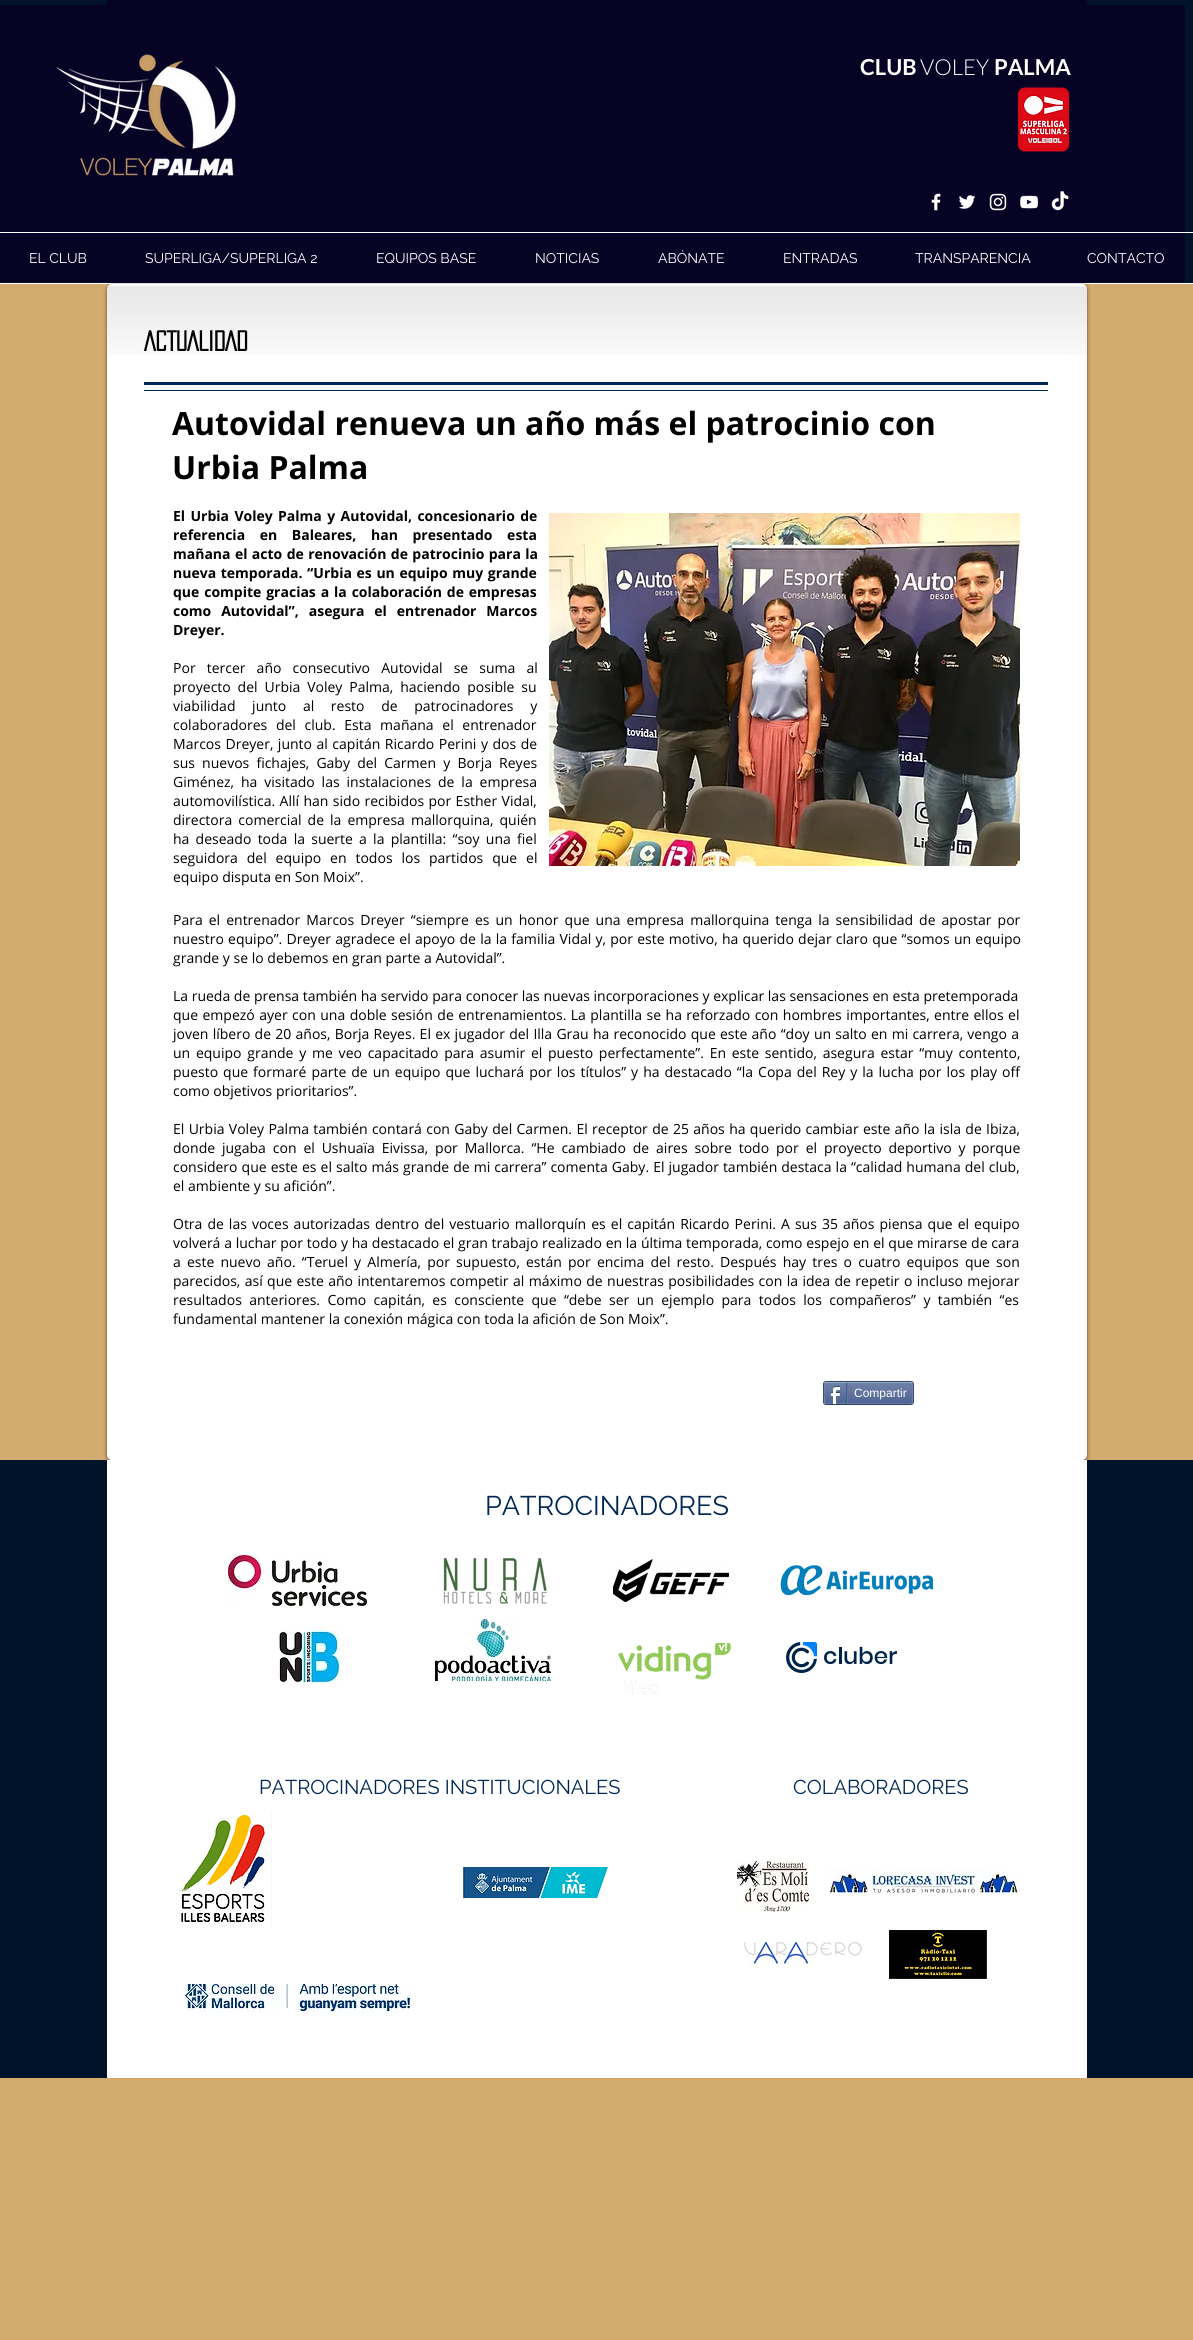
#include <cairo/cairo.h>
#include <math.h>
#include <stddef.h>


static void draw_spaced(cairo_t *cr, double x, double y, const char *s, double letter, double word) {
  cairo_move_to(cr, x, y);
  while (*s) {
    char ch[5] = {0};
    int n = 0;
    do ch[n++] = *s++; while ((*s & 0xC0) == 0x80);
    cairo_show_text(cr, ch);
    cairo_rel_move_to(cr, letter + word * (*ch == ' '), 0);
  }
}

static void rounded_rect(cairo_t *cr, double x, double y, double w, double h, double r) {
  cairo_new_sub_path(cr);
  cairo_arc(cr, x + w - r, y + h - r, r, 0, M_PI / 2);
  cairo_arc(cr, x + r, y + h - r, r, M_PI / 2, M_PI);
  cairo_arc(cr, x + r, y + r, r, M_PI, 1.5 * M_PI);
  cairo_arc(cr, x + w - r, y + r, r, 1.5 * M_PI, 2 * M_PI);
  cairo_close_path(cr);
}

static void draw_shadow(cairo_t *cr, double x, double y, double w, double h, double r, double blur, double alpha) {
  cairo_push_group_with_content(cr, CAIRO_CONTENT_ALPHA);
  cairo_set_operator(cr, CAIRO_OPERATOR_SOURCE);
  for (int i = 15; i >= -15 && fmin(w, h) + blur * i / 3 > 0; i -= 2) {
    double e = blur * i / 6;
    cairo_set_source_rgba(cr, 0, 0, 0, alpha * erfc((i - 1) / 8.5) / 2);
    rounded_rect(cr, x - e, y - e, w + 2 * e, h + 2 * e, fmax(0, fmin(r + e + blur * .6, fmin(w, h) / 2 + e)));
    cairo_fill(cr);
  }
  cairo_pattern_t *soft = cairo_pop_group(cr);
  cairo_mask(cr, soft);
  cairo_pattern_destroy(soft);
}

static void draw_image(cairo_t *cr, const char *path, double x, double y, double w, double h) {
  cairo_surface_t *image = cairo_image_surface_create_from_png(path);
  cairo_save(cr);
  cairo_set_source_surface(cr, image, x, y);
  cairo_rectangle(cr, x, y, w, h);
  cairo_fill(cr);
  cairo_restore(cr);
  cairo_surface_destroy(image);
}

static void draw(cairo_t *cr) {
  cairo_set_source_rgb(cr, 212 / 255.0, 171 / 255.0, 110 / 255.0);
  cairo_paint(cr);
  cairo_set_source_rgb(cr, 0, 19 / 255.0, 42 / 255.0);
  cairo_rectangle(cr, 0, 0, 1193, 283);
  cairo_fill(cr);
  cairo_set_source_rgb(cr, 7 / 255.0, 3 / 255.0, 36 / 255.0);
  cairo_rectangle(cr, 107, 0, 980, 283);
  cairo_fill(cr);
  cairo_rectangle(cr, 0, 5, 1185, 277);
  cairo_fill(cr);
  draw_image(cr, "images/1.png", 56, 54, 180, 122);
  draw_image(cr, "images/2.png", 1017, 87, 53, 65);
  draw_image(cr, "images/3.png", 931, 193, 10, 18);
  draw_image(cr, "images/4.png", 959, 195, 17, 14);
  draw_image(cr, "images/5.png", 989, 193, 18, 18);
  draw_image(cr, "images/6.png", 1020, 195, 19, 14);
  draw_image(cr, "images/7.png", 1051, 191, 18, 20);
  cairo_set_source_rgb(cr, 1, 1, 1);
  cairo_rectangle(cr, 0, 232, 1193, 1);
  cairo_fill(cr);
  cairo_rectangle(cr, 0, 283, 1193, 1);
  cairo_fill(cr);
  cairo_set_source_rgb(cr, 0, 0, 0);
  draw_shadow(cr, 107, 285, 980, 1176, 5, 2, 0.6);
  cairo_set_source_rgb(cr, 1, 1, 1);
  rounded_rect(cr, 107, 284, 980, 1176, 5);
  cairo_fill(cr);
  draw_image(cr, "images/8.png", 107, 286, 980, 69);
  cairo_set_source_rgb(cr, 0, 39 / 255.0, 84 / 255.0);
  cairo_rectangle(cr, 144, 382, 904, 3);
  cairo_fill(cr);
  cairo_rectangle(cr, 144, 390, 904, 1);
  cairo_fill(cr);
  draw_image(cr, "images/9.png", 549, 513, 471, 353);
  rounded_rect(cr, 823.5, 1381.5, 90, 23, 2.5);
  cairo_set_source_rgb(cr, 45 / 255.0, 69 / 255.0, 101 / 255.0);
  cairo_set_line_width(cr, 1);
  cairo_stroke(cr);
  draw_image(cr, "images/10.png", 824, 1383, 89, 21);
  cairo_new_path(cr);
  cairo_move_to(cr, 825, 1383);
  cairo_line_to(cr, 826, 1382.5);
  cairo_line_to(cr, 911, 1382.5);
  cairo_line_to(cr, 912, 1383);
  cairo_set_source_rgb(cr, 154 / 255.0, 171 / 255.0, 198 / 255.0);
  cairo_stroke(cr);
  cairo_new_path(cr);
  cairo_move_to(cr, 912, 1383);
  cairo_curve_to(cr, 913, 1383.5, 913, 1402.5, 912, 1403);
  cairo_set_source_rgb(cr, 111 / 255.0, 131 / 255.0, 173 / 255.0);
  cairo_stroke(cr);
  cairo_new_path(cr);
  cairo_move_to(cr, 912, 1403);
  cairo_line_to(cr, 911, 1403.5);
  cairo_line_to(cr, 826, 1403.5);
  cairo_line_to(cr, 825, 1403);
  cairo_set_source_rgb(cr, 97 / 255.0, 118 / 255.0, 163 / 255.0);
  cairo_stroke(cr);
  cairo_new_path(cr);
  cairo_move_to(cr, 825, 1403);
  cairo_curve_to(cr, 824, 1402.5, 824, 1383.5, 825, 1383);
  cairo_set_source_rgb(cr, 111 / 255.0, 131 / 255.0, 173 / 255.0);
  cairo_stroke(cr);
  draw_image(cr, "images/11.png", 830, 1386, 10, 18);
  cairo_set_source_rgb(cr, 66 / 255.0, 94 / 255.0, 133 / 255.0);
  cairo_rectangle(cr, 846, 1383, 1, 21);
  cairo_fill(cr);
  cairo_set_source_rgb(cr, 97 / 255.0, 118 / 255.0, 163 / 255.0);
  cairo_rectangle(cr, 847, 1383, 1, 20);
  cairo_fill(cr);
  cairo_set_source_rgb(cr, 0, 19 / 255.0, 42 / 255.0);
  cairo_rectangle(cr, 0, 1460, 1193, 618);
  cairo_fill(cr);
  cairo_set_source_rgb(cr, 1, 1, 1);
  cairo_rectangle(cr, 107, 1460, 980, 618);
  cairo_fill(cr);
  draw_image(cr, "images/12.png", 228, 1555, 139, 51);
  draw_image(cr, "images/13.png", 443, 1558, 104, 46);
  draw_image(cr, "images/14.png", 780, 1565, 154, 31);
  draw_image(cr, "images/15.png", 279, 1626, 62, 57);
  draw_image(cr, "images/16.png", 889, 1930, 98, 49);
  draw_image(cr, "images/17.png", 613, 1559, 116, 43);
  draw_image(cr, "images/18.png", 435, 1619, 116, 62);
  draw_image(cr, "images/19.png", 618, 1643, 113, 51);
  draw_image(cr, "images/20.png", 786, 1642, 111, 31);
  draw_image(cr, "images/21.png", 463, 1867, 145, 31);
  draw_image(cr, "images/22.png", 737, 1861, 72, 51);
  draw_image(cr, "images/23.png", 829, 1868, 189, 27);
  draw_image(cr, "images/24.png", 744, 1939, 118, 30);
  draw_image(cr, "images/25.png", 179, 1811, 93, 116);
  draw_image(cr, "images/26.png", 185, 1984, 225, 32);
  cairo_select_font_face(cr, "Lato", CAIRO_FONT_SLANT_NORMAL, CAIRO_FONT_WEIGHT_BOLD);
  cairo_set_font_size(cr, 22);
  cairo_move_to(cr, 860, 75);
  cairo_show_text(cr, "CLUB");
  cairo_select_font_face(cr, "Lato Light", CAIRO_FONT_SLANT_NORMAL, CAIRO_FONT_WEIGHT_NORMAL);
  cairo_move_to(cr, 920, 75);
  cairo_show_text(cr, "VOLEY");
  cairo_select_font_face(cr, "Lato", CAIRO_FONT_SLANT_NORMAL, CAIRO_FONT_WEIGHT_BOLD);
  cairo_move_to(cr, 994, 75);
  cairo_show_text(cr, "PALMA");
  cairo_select_font_face(cr, "Raleway", CAIRO_FONT_SLANT_NORMAL, CAIRO_FONT_WEIGHT_NORMAL);
  cairo_set_font_size(cr, 14);
  cairo_move_to(cr, 29, 263);
  cairo_show_text(cr, "EL CLUB");
  cairo_move_to(cr, 145, 263);
  cairo_show_text(cr, "SUPERLIGA/SUPERLIGA 2");
  cairo_move_to(cr, 376, 263);
  cairo_show_text(cr, "EQUIPOS BASE");
  cairo_move_to(cr, 535, 263);
  cairo_show_text(cr, "NOTICIAS");
  cairo_move_to(cr, 658, 263);
  cairo_show_text(cr, "ABÓNATE");
  cairo_move_to(cr, 783, 263);
  cairo_show_text(cr, "ENTRADAS");
  cairo_move_to(cr, 915, 263);
  cairo_show_text(cr, "TRANSPARENCIA");
  cairo_move_to(cr, 1087, 263);
  cairo_show_text(cr, "CONTACTO");
  cairo_select_font_face(cr, "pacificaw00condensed", CAIRO_FONT_SLANT_NORMAL, CAIRO_FONT_WEIGHT_BOLD);
  cairo_set_font_size(cr, 25);
  cairo_set_source_rgb(cr, 0, 0, 0);
  cairo_move_to(cr, 144, 351);
  cairo_show_text(cr, "ACTUALIDAD");
  cairo_select_font_face(cr, "Open Sans", CAIRO_FONT_SLANT_NORMAL, CAIRO_FONT_WEIGHT_BOLD);
  cairo_set_font_size(cr, 32);
  cairo_move_to(cr, 172, 435);
  cairo_show_text(cr, "Autovidal renueva un año más el patrocinio con");
  cairo_move_to(cr, 172, 479);
  cairo_show_text(cr, "Urbia Palma");
  cairo_set_font_size(cr, 14);
  draw_spaced(cr, 173, 521, "El Urbia Voley Palma y Autovidal, concesionario de", 0, 1.75);
  draw_spaced(cr, 173, 540, "referencia en Baleares, han presentado esta", 0, 11);
  draw_spaced(cr, 173, 559, "mañana el acto de renovación de patrocinio para la", 0, 0.75);
  draw_spaced(cr, 173, 578, "nueva temporada. “Urbia es un equipo muy grande", 0, 1);
  draw_spaced(cr, 173, 597, "que compite gracias a la colaboración de empresas", 0, 1.25);
  draw_spaced(cr, 173, 616, "como Autovidal”, asegura el entrenador Marcos", 0, 6.25);
  cairo_move_to(cr, 173, 635);
  cairo_show_text(cr, "Dreyer.");
  cairo_select_font_face(cr, "Open Sans", CAIRO_FONT_SLANT_NORMAL, CAIRO_FONT_WEIGHT_NORMAL);
  draw_spaced(cr, 173, 673, "Por tercer año consecutivo Autovidal se suma al", 0, 7.5);
  draw_spaced(cr, 173, 692, "proyecto del Urbia Voley Palma, haciendo posible su", 0, 3.25);
  draw_spaced(cr, 173, 711, "viabilidad junto al resto de patrocinadores y", 0, 13);
  draw_spaced(cr, 173, 730, "colaboradores del club. Esta mañana el entrenador", 0, 5);
  draw_spaced(cr, 173, 749, "Marcos Dreyer, junto al capitán Ricardo Perini y dos de", 0, 0.9);
  draw_spaced(cr, 173, 768, "sus nuevos fichajes, Gaby del Carmen y Borja Reyes", 0, 3.5);
  draw_spaced(cr, 173, 787, "Giménez, ha visitado las instalaciones de la empresa", 0, 3.25);
  draw_spaced(cr, 173, 806, "automovilística. Allí han sido recibidos por Esther Vidal,", 0, 0.75);
  draw_spaced(cr, 173, 825, "directora comercial de la empresa mallorquina, quién", 0, 2.4);
  draw_spaced(cr, 173, 844, "ha deseado toda la suerte a la plantilla: “soy una fiel", 0, 2.6);
  draw_spaced(cr, 173, 863, "seguidora del equipo en todos los partidos que el", 0, 5.25);
  cairo_move_to(cr, 173, 882);
  cairo_show_text(cr, "equipo disputa en Son Moix”.");
  draw_spaced(cr, 173, 925, "Para el entrenador Marcos Dreyer “siempre es un honor que una empresa mallorquina tenga la sensibilidad de apostar por", 0, 2.4);
  draw_spaced(cr, 173, 944, "nuestro equipo”. Dreyer agradece el apoyo de la la familia Vidal y, por este motivo, ha querido dejar claro que “somos un equipo", 0, 0.6);
  cairo_move_to(cr, 173, 963);
  cairo_show_text(cr, "grande y se lo debemos en gran parte a Autovidal”.");
  cairo_move_to(cr, 173, 1001);
  cairo_show_text(cr, "La rueda de prensa también ha servido para conocer las nuevas incorporaciones y explicar las sensaciones en esta pretemporada");
  draw_spaced(cr, 173, 1020, "que empezó ayer con una doble sesión de entrenamientos. La plantilla se ha reforzado con hombres importantes, entre ellos el", 0, 0.8);
  draw_spaced(cr, 173, 1039, "joven líbero de 20 años, Borja Reyes. El ex jugador del Illa Grau ha reconocido que este año “doy un salto en mi carrera, vengo a", 0, 0.6);
  draw_spaced(cr, 173, 1058, "un equipo grande y me veo capacitado para asumir el puesto perfectamente”. En este sentido, asegura estar “muy contento,", 0, 2.1);
  draw_spaced(cr, 173, 1077, "puesto que formaré parte de un equipo que luchará por los títulos” y ha destacado “la Copa del Rey y la lucha por los play off", 0, 1.35);
  cairo_move_to(cr, 173, 1096);
  cairo_show_text(cr, "como objetivos prioritarios”.");
  draw_spaced(cr, 173, 1134, "El Urbia Voley Palma también contará con Gaby del Carmen. El receptor de 25 años ha querido cambiar este año la isla de Ibiza,", 0, 0.7);
  draw_spaced(cr, 173, 1153, "donde jugaba con el Ushuaïa Eivissa, por Mallorca. “He cambiado de aires sobre todo por el proyecto deportivo y porque", 0, 3.25);
  draw_spaced(cr, 173, 1172, "considero que este es el salto más grande de mi carrera” comenta Gaby. El jugador también destaca la “calidad humana del club,", 0, 0.4);
  cairo_move_to(cr, 173, 1191);
  cairo_show_text(cr, "el ambiente y su afición”.");
  draw_spaced(cr, 173, 1229, "Otra de las voces autorizadas dentro del vestuario mallorquín es el capitán Ricardo Perini. A sus 35 años piensa que el equipo", 0, 1.4);
  draw_spaced(cr, 173, 1248, "volverá a luchar por todo y ha destacado el gran trabajo realizado en la última temporada, como espejo en el que mirarse de cara", 0, 0.1);
  draw_spaced(cr, 173, 1267, "a este nuevo año. “Teruel y Almería, por supuesto, están por encima del resto. Después hay tres o cuatro equipos que son", 0, 2.5);
  draw_spaced(cr, 173, 1286, "parecidos, así que este año intentaremos competir al máximo de nuestras posibilidades con la idea de repetir o incluso mejorar", 0, 0.75);
  draw_spaced(cr, 173, 1305, "resultados anteriores. Como capitán, es consciente que “debe ser un ejemplo para todos los compañeros” y también “es", 0, 3.75);
  cairo_move_to(cr, 173, 1324);
  cairo_show_text(cr, "fundamental mantener la conexión mágica con toda la afición de Son Moix”.");
  cairo_select_font_face(cr, "Liberation Sans", CAIRO_FONT_SLANT_NORMAL, CAIRO_FONT_WEIGHT_NORMAL);
  cairo_set_font_size(cr, 12);
  cairo_set_source_rgb(cr, 1, 1, 1);
  cairo_move_to(cr, 854, 1397);
  cairo_show_text(cr, "Compartir");
  cairo_select_font_face(cr, "Raleway", CAIRO_FONT_SLANT_NORMAL, CAIRO_FONT_WEIGHT_NORMAL);
  cairo_set_font_size(cr, 27);
  cairo_set_source_rgb(cr, 0, 39 / 255.0, 84 / 255.0);
  cairo_move_to(cr, 485, 1515);
  cairo_show_text(cr, "PATROCINADORES");
  cairo_set_font_size(cr, 20);
  cairo_move_to(cr, 259, 1794);
  cairo_show_text(cr, "PATROCINADORES INSTITUCIONALES");
  cairo_move_to(cr, 793, 1794);
  cairo_show_text(cr, "COLABORADORES");
}

int main(void) {
  cairo_surface_t *surface = cairo_image_surface_create(CAIRO_FORMAT_RGB24, 1193, 2340);
  cairo_t *cr = cairo_create(surface);
  cairo_font_options_t *options = cairo_font_options_create();
  cairo_font_options_set_hint_metrics(options, CAIRO_HINT_METRICS_OFF);
  cairo_font_options_set_hint_style(options, CAIRO_HINT_STYLE_NONE);
  cairo_set_font_options(cr, options);
  cairo_set_miter_limit(cr, 4);
  draw(cr);
  cairo_surface_write_to_png(surface, "out.png");
  cairo_font_options_destroy(options);
  cairo_destroy(cr);
  cairo_surface_destroy(surface);
  return 0;
}
